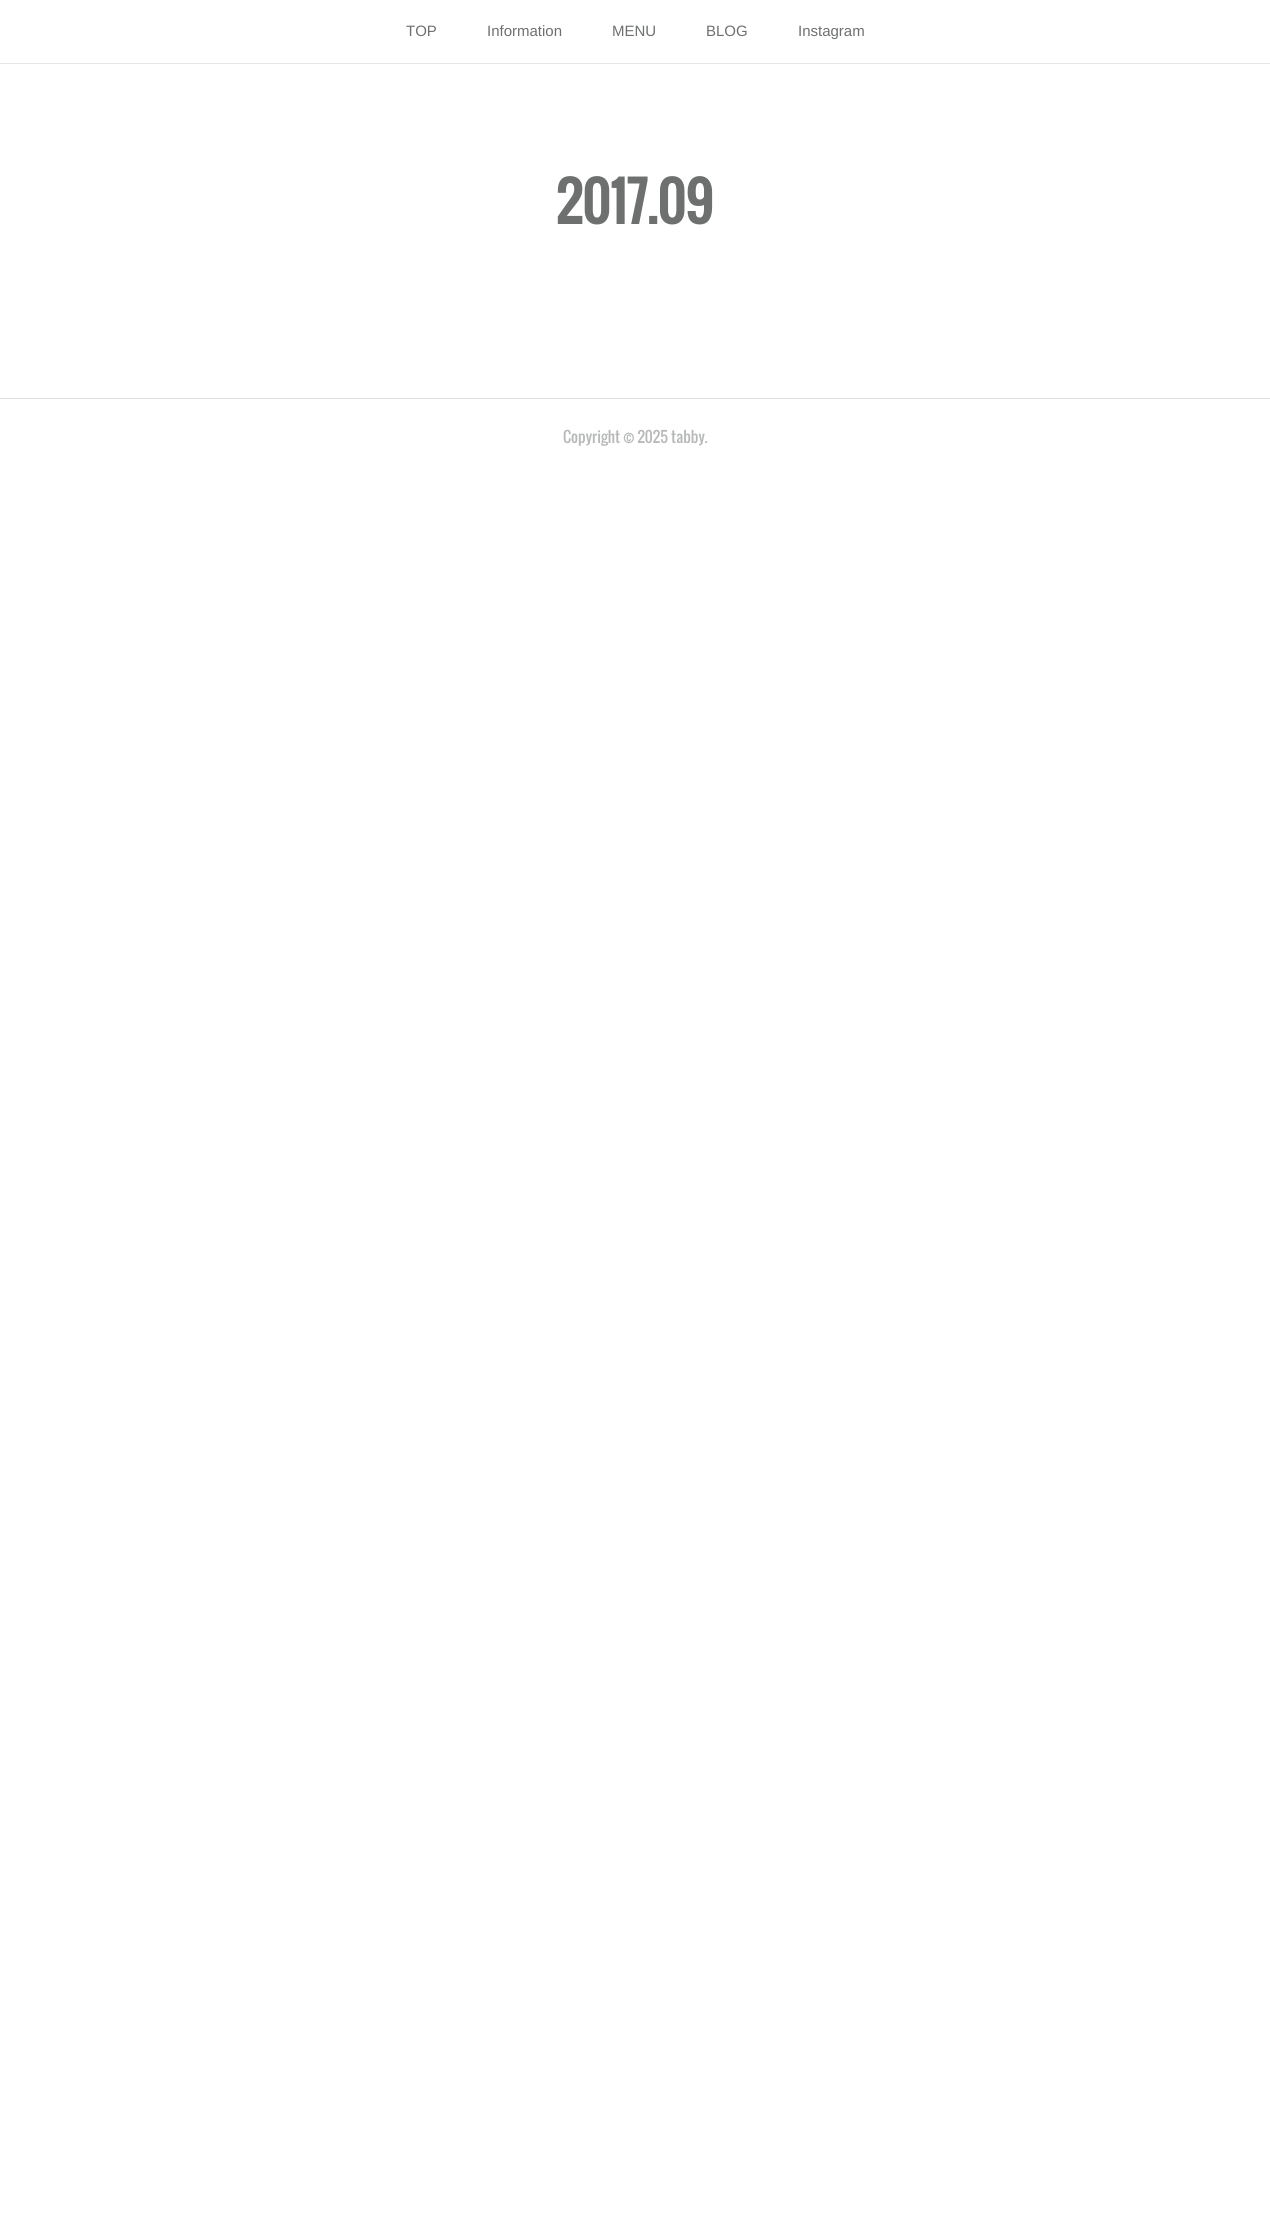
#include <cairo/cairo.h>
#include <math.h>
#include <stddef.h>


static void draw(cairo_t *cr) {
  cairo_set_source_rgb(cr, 1, 1, 1);
  cairo_paint(cr);
  cairo_set_source_rgb(cr, 230 / 255.0, 230 / 255.0, 230 / 255.0);
  cairo_rectangle(cr, 0, 63, 1270, 1);
  cairo_fill(cr);
  cairo_set_source_rgb(cr, 222 / 255.0, 224 / 255.0, 224 / 255.0);
  cairo_rectangle(cr, 0, 398, 1270, 1);
  cairo_fill(cr);
  cairo_select_font_face(cr, "Liberation Sans", CAIRO_FONT_SLANT_NORMAL, CAIRO_FONT_WEIGHT_NORMAL);
  cairo_set_font_size(cr, 15);
  cairo_set_source_rgb(cr, 110 / 255.0, 112 / 255.0, 112 / 255.0);
  cairo_move_to(cr, 406, 36);
  cairo_show_text(cr, "TOP");
  cairo_move_to(cr, 487, 36);
  cairo_show_text(cr, "Information");
  cairo_move_to(cr, 612, 36);
  cairo_show_text(cr, "MENU");
  cairo_move_to(cr, 706, 36);
  cairo_show_text(cr, "BLOG");
  cairo_move_to(cr, 798, 36);
  cairo_show_text(cr, "Instagram");
  cairo_select_font_face(cr, "Oswald", CAIRO_FONT_SLANT_NORMAL, CAIRO_FONT_WEIGHT_BOLD);
  cairo_set_font_size(cr, 52.5);
  cairo_move_to(cr, 556, 224);
  cairo_show_text(cr, "2017.09");
  cairo_select_font_face(cr, "Oswald", CAIRO_FONT_SLANT_NORMAL, CAIRO_FONT_WEIGHT_NORMAL);
  cairo_set_font_size(cr, 15);
  cairo_set_source_rgb(cr, 183 / 255.0, 184 / 255.0, 184 / 255.0);
  cairo_move_to(cr, 563, 443);
  cairo_show_text(cr, "Copyright © 2025 tabby.");
}

int main(void) {
  cairo_surface_t *surface = cairo_image_surface_create(CAIRO_FORMAT_RGB24, 1270, 2232);
  cairo_t *cr = cairo_create(surface);
  cairo_font_options_t *options = cairo_font_options_create();
  cairo_font_options_set_hint_metrics(options, CAIRO_HINT_METRICS_OFF);
  cairo_font_options_set_hint_style(options, CAIRO_HINT_STYLE_NONE);
  cairo_set_font_options(cr, options);
  cairo_set_miter_limit(cr, 4);
  draw(cr);
  cairo_surface_write_to_png(surface, "out.png");
  cairo_font_options_destroy(options);
  cairo_destroy(cr);
  cairo_surface_destroy(surface);
  return 0;
}
